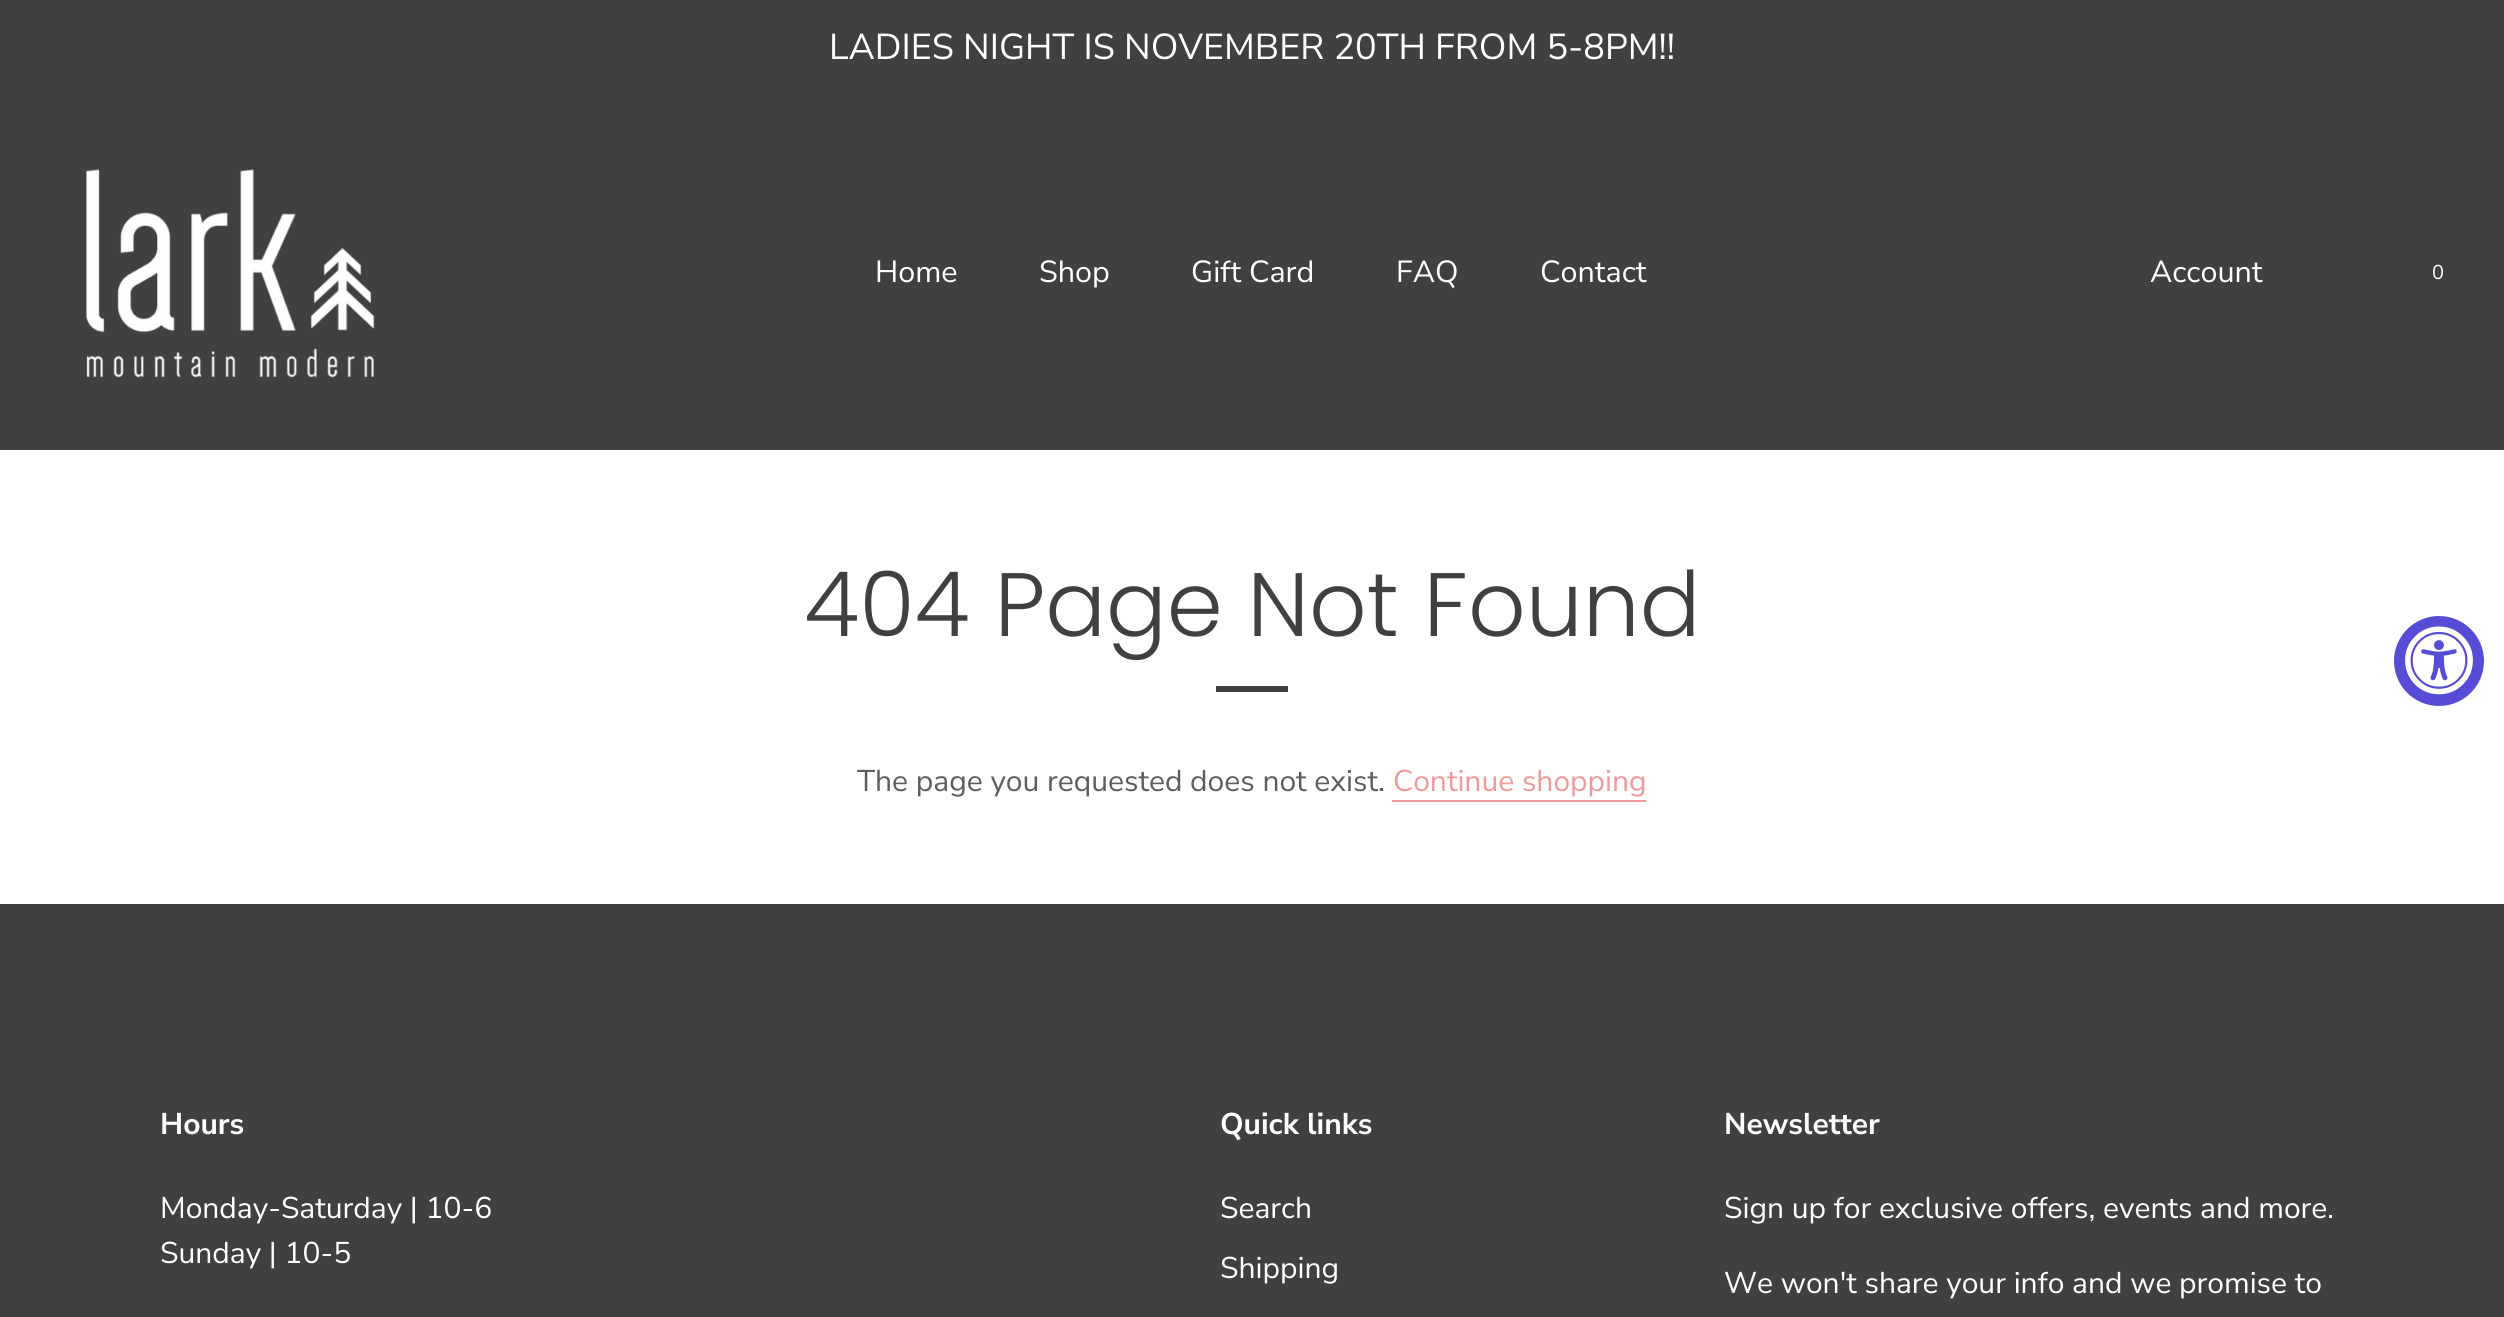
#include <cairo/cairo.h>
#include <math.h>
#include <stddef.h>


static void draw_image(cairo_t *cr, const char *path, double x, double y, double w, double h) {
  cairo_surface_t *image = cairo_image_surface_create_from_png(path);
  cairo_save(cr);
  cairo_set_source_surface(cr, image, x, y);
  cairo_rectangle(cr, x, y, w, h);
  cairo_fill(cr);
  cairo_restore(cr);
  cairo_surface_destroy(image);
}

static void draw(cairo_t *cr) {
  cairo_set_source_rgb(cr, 1, 1, 1);
  cairo_paint(cr);
  cairo_set_source_rgb(cr, 66 / 255.0, 63 / 255.0, 63 / 255.0);
  cairo_rectangle(cr, 0, 0, 2504, 450);
  cairo_fill(cr);
  draw_image(cr, "images/1.png", 86, 169, 289, 209);
  cairo_rectangle(cr, 1216, 686, 72, 6);
  cairo_fill(cr);
  cairo_set_source_rgb(cr, 239 / 255.0, 154 / 255.0, 154 / 255.0);
  cairo_rectangle(cr, 1392, 800, 254, 2);
  cairo_fill(cr);
  cairo_set_source_rgb(cr, 87 / 255.0, 76 / 255.0, 213 / 255.0);
  cairo_arc(cr, 2439, 661, 45, 0, 2 * M_PI);
  cairo_fill(cr);
  draw_image(cr, "images/2.png", 2405, 626, 68, 69);
  cairo_set_source_rgb(cr, 66 / 255.0, 63 / 255.0, 63 / 255.0);
  cairo_rectangle(cr, 0, 904, 2504, 413);
  cairo_fill(cr);
  cairo_select_font_face(cr, "Nunito Sans", CAIRO_FONT_SLANT_NORMAL, CAIRO_FONT_WEIGHT_NORMAL);
  cairo_set_font_size(cr, 36);
  cairo_set_source_rgb(cr, 1, 1, 1);
  cairo_move_to(cr, 829, 59);
  cairo_show_text(cr, "LADIES NIGHT IS NOVEMBER 20TH FROM 5-8PM!!");
  cairo_set_font_size(cr, 30.5);
  cairo_move_to(cr, 875, 282);
  cairo_show_text(cr, "Home");
  cairo_move_to(cr, 1039, 282);
  cairo_show_text(cr, "Shop");
  cairo_move_to(cr, 1191, 282);
  cairo_show_text(cr, "Gift Card");
  cairo_move_to(cr, 1396, 282);
  cairo_show_text(cr, "FAQ");
  cairo_move_to(cr, 1540, 282);
  cairo_show_text(cr, "Contact");
  cairo_move_to(cr, 2150, 282);
  cairo_show_text(cr, "Account");
  cairo_set_font_size(cr, 20);
  cairo_move_to(cr, 2432, 279);
  cairo_show_text(cr, "0");
  cairo_select_font_face(cr, "Poppins Light", CAIRO_FONT_SLANT_NORMAL, CAIRO_FONT_WEIGHT_NORMAL);
  cairo_set_font_size(cr, 90);
  cairo_set_source_rgb(cr, 66 / 255.0, 63 / 255.0, 63 / 255.0);
  cairo_move_to(cr, 804, 636);
  cairo_show_text(cr, "404 Page Not Found");
  cairo_select_font_face(cr, "Nunito Sans", CAIRO_FONT_SLANT_NORMAL, CAIRO_FONT_WEIGHT_NORMAL);
  cairo_set_font_size(cr, 30);
  cairo_set_source_rgb(cr, 94 / 255.0, 92 / 255.0, 92 / 255.0);
  cairo_move_to(cr, 857, 791);
  cairo_show_text(cr, "The page you requested does not exist.");
  cairo_set_source_rgb(cr, 239 / 255.0, 154 / 255.0, 154 / 255.0);
  cairo_move_to(cr, 1393, 791);
  cairo_show_text(cr, "Continue shopping");
  cairo_select_font_face(cr, "Nunito Sans", CAIRO_FONT_SLANT_NORMAL, CAIRO_FONT_WEIGHT_BOLD);
  cairo_set_source_rgb(cr, 1, 1, 1);
  cairo_move_to(cr, 160, 1134);
  cairo_show_text(cr, "Hours");
  cairo_select_font_face(cr, "Nunito Sans", CAIRO_FONT_SLANT_NORMAL, CAIRO_FONT_WEIGHT_NORMAL);
  cairo_move_to(cr, 160, 1218);
  cairo_show_text(cr, "Monday-Saturday | 10-6");
  cairo_move_to(cr, 160, 1263);
  cairo_show_text(cr, "Sunday | 10-5");
  cairo_select_font_face(cr, "Nunito Sans", CAIRO_FONT_SLANT_NORMAL, CAIRO_FONT_WEIGHT_BOLD);
  cairo_move_to(cr, 1220, 1134);
  cairo_show_text(cr, "Quick links");
  cairo_select_font_face(cr, "Nunito Sans", CAIRO_FONT_SLANT_NORMAL, CAIRO_FONT_WEIGHT_NORMAL);
  cairo_move_to(cr, 1220, 1218);
  cairo_show_text(cr, "Search");
  cairo_move_to(cr, 1220, 1278);
  cairo_show_text(cr, "Shipping");
  cairo_select_font_face(cr, "Nunito Sans", CAIRO_FONT_SLANT_NORMAL, CAIRO_FONT_WEIGHT_BOLD);
  cairo_move_to(cr, 1724, 1134);
  cairo_show_text(cr, "Newsletter");
  cairo_select_font_face(cr, "Nunito Sans", CAIRO_FONT_SLANT_NORMAL, CAIRO_FONT_WEIGHT_NORMAL);
  cairo_move_to(cr, 1724, 1218);
  cairo_show_text(cr, "Sign up for exclusive offers, events and more.");
  cairo_move_to(cr, 1724, 1293);
  cairo_show_text(cr, "We won't share your info and we promise to");
}

int main(void) {
  cairo_surface_t *surface = cairo_image_surface_create(CAIRO_FORMAT_RGB24, 2504, 1317);
  cairo_t *cr = cairo_create(surface);
  cairo_font_options_t *options = cairo_font_options_create();
  cairo_font_options_set_hint_metrics(options, CAIRO_HINT_METRICS_OFF);
  cairo_font_options_set_hint_style(options, CAIRO_HINT_STYLE_NONE);
  cairo_set_font_options(cr, options);
  cairo_set_miter_limit(cr, 4);
  draw(cr);
  cairo_surface_write_to_png(surface, "out.png");
  cairo_font_options_destroy(options);
  cairo_destroy(cr);
  cairo_surface_destroy(surface);
  return 0;
}
